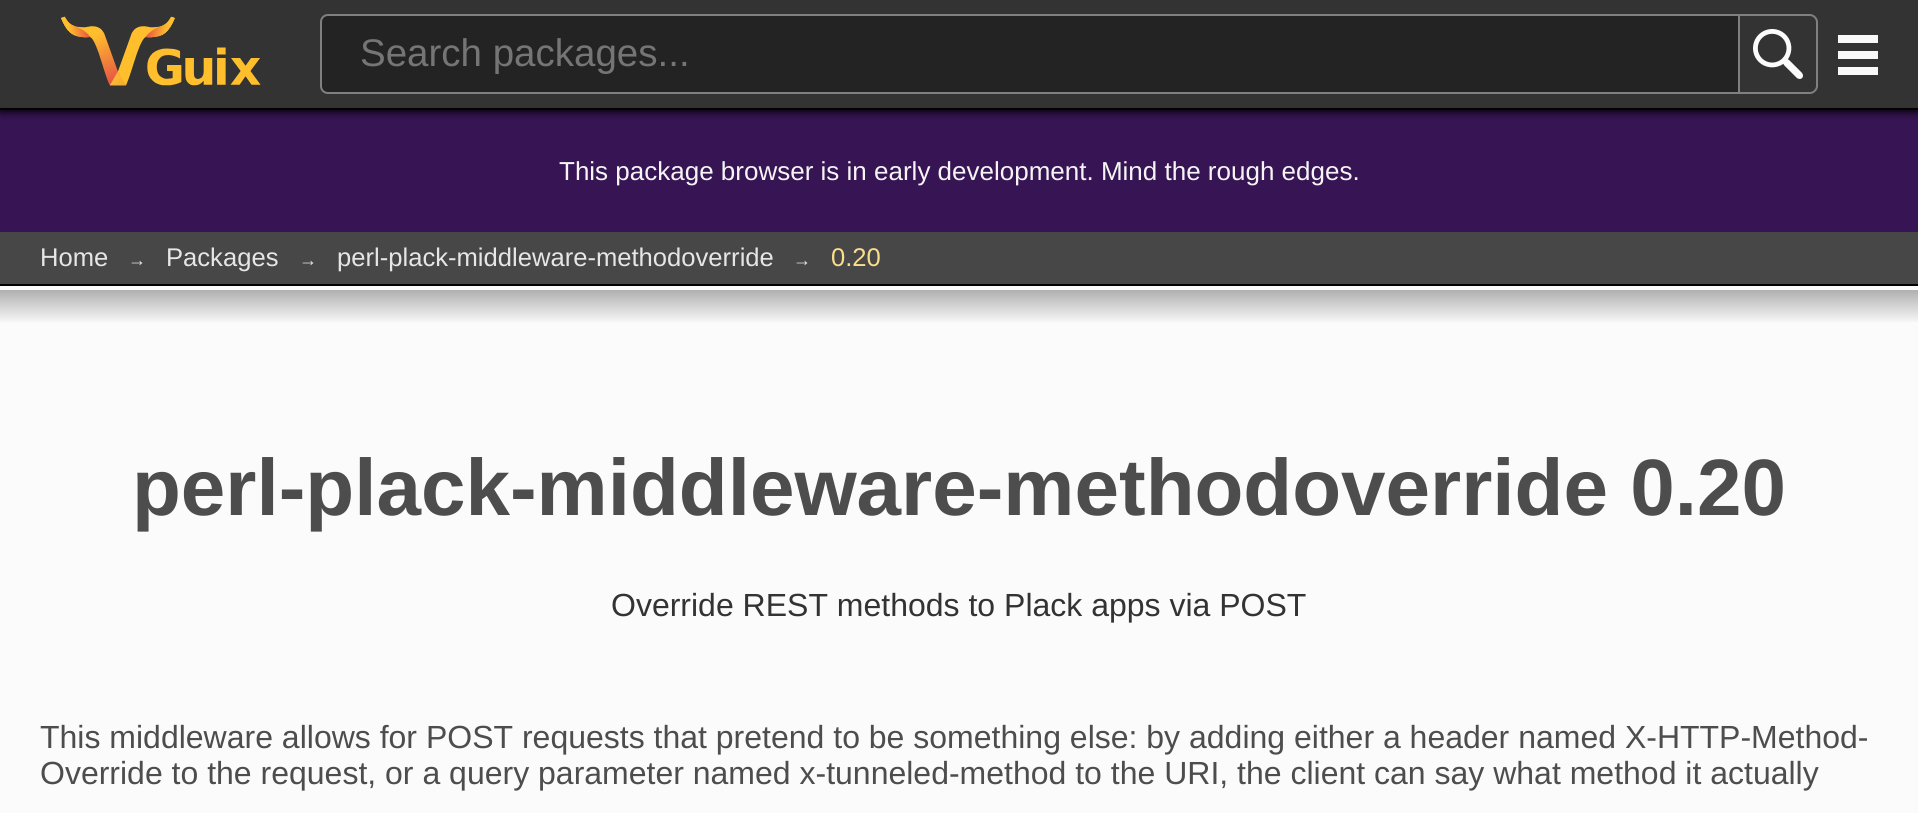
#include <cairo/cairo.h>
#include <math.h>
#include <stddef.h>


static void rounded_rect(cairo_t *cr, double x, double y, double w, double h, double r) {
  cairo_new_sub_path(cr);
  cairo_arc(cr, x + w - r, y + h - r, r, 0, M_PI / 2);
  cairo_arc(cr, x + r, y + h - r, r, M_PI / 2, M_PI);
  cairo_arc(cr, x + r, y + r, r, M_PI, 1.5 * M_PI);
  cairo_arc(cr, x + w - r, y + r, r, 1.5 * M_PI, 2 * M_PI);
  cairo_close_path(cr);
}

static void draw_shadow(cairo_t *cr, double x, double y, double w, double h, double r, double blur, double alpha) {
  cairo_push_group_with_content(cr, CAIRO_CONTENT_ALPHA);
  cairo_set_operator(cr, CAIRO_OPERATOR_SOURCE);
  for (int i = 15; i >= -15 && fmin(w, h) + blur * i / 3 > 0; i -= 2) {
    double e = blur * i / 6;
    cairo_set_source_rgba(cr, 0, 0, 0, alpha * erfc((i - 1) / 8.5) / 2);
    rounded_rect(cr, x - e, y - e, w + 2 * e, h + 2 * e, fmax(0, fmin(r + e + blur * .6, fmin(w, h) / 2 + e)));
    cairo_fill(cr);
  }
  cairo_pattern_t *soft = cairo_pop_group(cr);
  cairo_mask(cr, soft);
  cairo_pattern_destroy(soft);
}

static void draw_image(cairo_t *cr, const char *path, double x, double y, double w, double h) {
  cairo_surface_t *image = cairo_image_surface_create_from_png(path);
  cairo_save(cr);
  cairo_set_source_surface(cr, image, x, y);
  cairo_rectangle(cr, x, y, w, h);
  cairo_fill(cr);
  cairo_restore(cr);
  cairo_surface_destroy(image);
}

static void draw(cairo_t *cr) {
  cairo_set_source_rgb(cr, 51 / 255.0, 51 / 255.0, 51 / 255.0);
  cairo_paint(cr);
  cairo_set_source_rgb(cr, 55 / 255.0, 20 / 255.0, 84 / 255.0);
  cairo_rectangle(cr, 0, 110, 1918, 122);
  cairo_fill(cr);
  cairo_save(cr);
  cairo_rectangle(cr, 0, 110, 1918, 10);
  cairo_clip(cr);
  cairo_set_source_rgb(cr, 0, 0, 0);
  draw_shadow(cr, 0, 2, 1918, 110, 0, 4, 1);
  cairo_restore(cr);
  cairo_set_source_rgb(cr, 0, 0, 0);
  cairo_rectangle(cr, 0, 108, 1918, 2);
  cairo_fill(cr);
  draw_image(cr, "images/1.png", 61, 16, 200, 70);
  cairo_set_source_rgb(cr, 36 / 255.0, 35 / 255.0, 35 / 255.0);
  cairo_new_path(cr);
  cairo_move_to(cr, 328, 15);
  cairo_line_to(cr, 1739, 15);
  cairo_line_to(cr, 1739, 93);
  cairo_line_to(cr, 328, 93);
  cairo_curve_to(cr, 324, 93, 321, 90, 321, 86);
  cairo_line_to(cr, 321, 22);
  cairo_curve_to(cr, 321, 18, 324, 15, 328, 15);
  cairo_close_path(cr);
  cairo_fill_preserve(cr);
  cairo_set_source_rgb(cr, 128 / 255.0, 128 / 255.0, 128 / 255.0);
  cairo_stroke(cr);
  draw_image(cr, "images/2.png", 1753, 29, 50, 50);
  cairo_set_fill_rule(cr, CAIRO_FILL_RULE_EVEN_ODD);
  cairo_new_path(cr);
  cairo_move_to(cr, 1740, 14);
  cairo_line_to(cr, 1810, 14);
  cairo_curve_to(cr, 1814, 14, 1818, 18, 1818, 22);
  cairo_line_to(cr, 1818, 86);
  cairo_curve_to(cr, 1818, 90, 1814, 94, 1810, 94);
  cairo_line_to(cr, 1740, 94);
  cairo_close_path(cr);
  cairo_move_to(cr, 1740, 16);
  cairo_line_to(cr, 1810, 16);
  cairo_curve_to(cr, 1813, 16, 1816, 19, 1816, 22);
  cairo_line_to(cr, 1816, 86);
  cairo_curve_to(cr, 1816, 89, 1813, 92, 1810, 92);
  cairo_line_to(cr, 1740, 92);
  cairo_close_path(cr);
  cairo_fill(cr);
  cairo_set_source_rgb(cr, 249 / 255.0, 249 / 255.0, 249 / 255.0);
  cairo_set_fill_rule(cr, CAIRO_FILL_RULE_WINDING);
  cairo_new_path(cr);
  cairo_move_to(cr, 1838, 35);
  cairo_line_to(cr, 1838, 43);
  cairo_line_to(cr, 1878, 43);
  cairo_line_to(cr, 1878, 35);
  cairo_close_path(cr);
  cairo_move_to(cr, 1838, 51);
  cairo_line_to(cr, 1838, 59);
  cairo_line_to(cr, 1878, 59);
  cairo_line_to(cr, 1878, 51);
  cairo_close_path(cr);
  cairo_move_to(cr, 1838, 67);
  cairo_line_to(cr, 1838, 75);
  cairo_line_to(cr, 1878, 75);
  cairo_line_to(cr, 1878, 67);
  cairo_close_path(cr);
  cairo_fill(cr);
  cairo_set_source_rgb(cr, 71 / 255.0, 71 / 255.0, 71 / 255.0);
  cairo_rectangle(cr, 0, 232, 1918, 52);
  cairo_fill(cr);
  cairo_set_source_rgb(cr, 0, 0, 0);
  cairo_rectangle(cr, 0, 284, 1918, 2);
  cairo_fill(cr);
  cairo_set_source_rgb(cr, 251 / 255.0, 251 / 255.0, 251 / 255.0);
  cairo_rectangle(cr, 0, 286, 1918, 527);
  cairo_fill(cr);
  draw_image(cr, "images/3.png", 0, 290, 1918, 32);
  cairo_select_font_face(cr, "Liberation Sans", CAIRO_FONT_SLANT_NORMAL, CAIRO_FONT_WEIGHT_NORMAL);
  cairo_set_font_size(cr, 38.5);
  cairo_set_source_rgb(cr, 117 / 255.0, 117 / 255.0, 117 / 255.0);
  cairo_move_to(cr, 360, 66);
  cairo_show_text(cr, "Search packages...");
  cairo_set_font_size(cr, 26);
  cairo_set_source_rgb(cr, 245 / 255.0, 245 / 255.0, 245 / 255.0);
  cairo_move_to(cr, 559, 180);
  cairo_show_text(cr, "This package browser is in early development. Mind the rough edges.");
  cairo_set_font_size(cr, 25.6);
  cairo_set_source_rgb(cr, 230 / 255.0, 230 / 255.0, 230 / 255.0);
  cairo_move_to(cr, 40, 266);
  cairo_show_text(cr, "Home");
  cairo_set_font_size(cr, 18);
  cairo_move_to(cr, 128, 266);
  cairo_show_text(cr, "→");
  cairo_set_font_size(cr, 25.6);
  cairo_move_to(cr, 166, 266);
  cairo_show_text(cr, "Packages");
  cairo_set_font_size(cr, 18);
  cairo_move_to(cr, 299, 266);
  cairo_show_text(cr, "→");
  cairo_set_font_size(cr, 25.6);
  cairo_move_to(cr, 337, 266);
  cairo_show_text(cr, "perl-plack-middleware-methodoverride");
  cairo_set_font_size(cr, 18);
  cairo_move_to(cr, 793, 266);
  cairo_show_text(cr, "→");
  cairo_set_font_size(cr, 25.6);
  cairo_set_source_rgb(cr, 250 / 255.0, 222 / 255.0, 139 / 255.0);
  cairo_move_to(cr, 831, 266);
  cairo_show_text(cr, "0.20");
  cairo_select_font_face(cr, "Liberation Sans", CAIRO_FONT_SLANT_NORMAL, CAIRO_FONT_WEIGHT_BOLD);
  cairo_set_font_size(cr, 80);
  cairo_set_source_rgb(cr, 77 / 255.0, 77 / 255.0, 77 / 255.0);
  cairo_move_to(cr, 132, 515);
  cairo_show_text(cr, "perl-plack-middleware-methodoverride 0.20");
  cairo_select_font_face(cr, "Liberation Sans", CAIRO_FONT_SLANT_NORMAL, CAIRO_FONT_WEIGHT_NORMAL);
  cairo_set_font_size(cr, 32);
  cairo_set_source_rgb(cr, 51 / 255.0, 51 / 255.0, 51 / 255.0);
  cairo_move_to(cr, 611, 616);
  cairo_show_text(cr, "Override REST methods to Plack apps via POST");
  cairo_set_source_rgb(cr, 77 / 255.0, 77 / 255.0, 77 / 255.0);
  cairo_move_to(cr, 40, 748);
  cairo_show_text(cr, "This middleware allows for POST requests that pretend to be something else: by adding either a header named X-HTTP-Method-");
  cairo_move_to(cr, 40, 784);
  cairo_show_text(cr, "Override to the request, or a query parameter named x-tunneled-method to the URI, the client can say what method it actually");
}

int main(void) {
  cairo_surface_t *surface = cairo_image_surface_create(CAIRO_FORMAT_RGB24, 1918, 813);
  cairo_t *cr = cairo_create(surface);
  cairo_font_options_t *options = cairo_font_options_create();
  cairo_font_options_set_hint_metrics(options, CAIRO_HINT_METRICS_OFF);
  cairo_font_options_set_hint_style(options, CAIRO_HINT_STYLE_NONE);
  cairo_set_font_options(cr, options);
  cairo_set_miter_limit(cr, 4);
  draw(cr);
  cairo_surface_write_to_png(surface, "out.png");
  cairo_font_options_destroy(options);
  cairo_destroy(cr);
  cairo_surface_destroy(surface);
  return 0;
}
